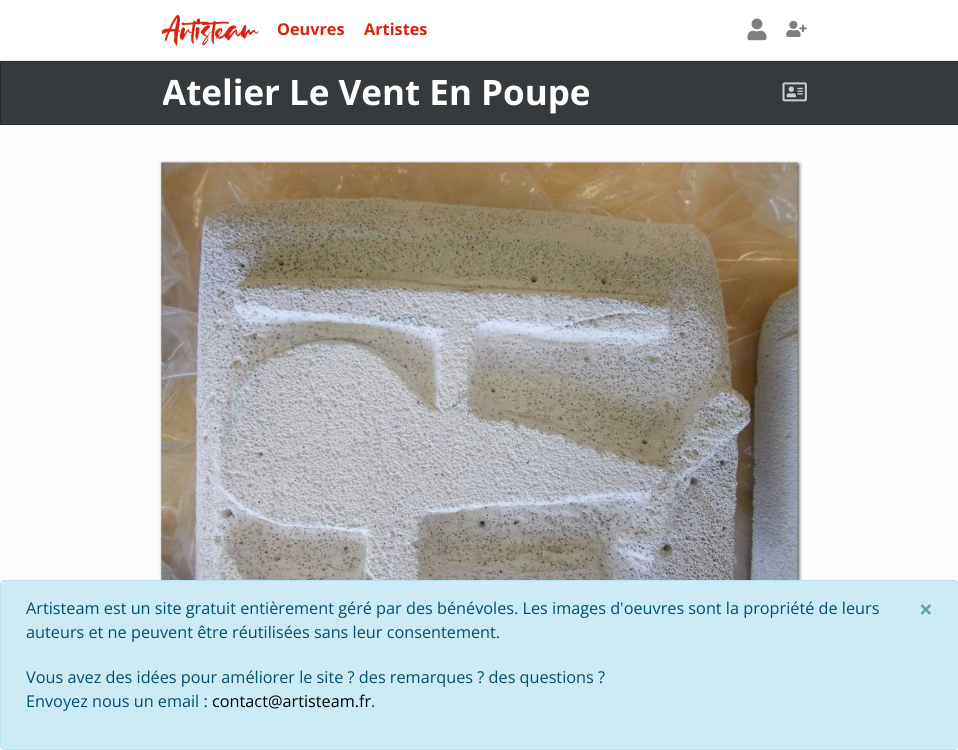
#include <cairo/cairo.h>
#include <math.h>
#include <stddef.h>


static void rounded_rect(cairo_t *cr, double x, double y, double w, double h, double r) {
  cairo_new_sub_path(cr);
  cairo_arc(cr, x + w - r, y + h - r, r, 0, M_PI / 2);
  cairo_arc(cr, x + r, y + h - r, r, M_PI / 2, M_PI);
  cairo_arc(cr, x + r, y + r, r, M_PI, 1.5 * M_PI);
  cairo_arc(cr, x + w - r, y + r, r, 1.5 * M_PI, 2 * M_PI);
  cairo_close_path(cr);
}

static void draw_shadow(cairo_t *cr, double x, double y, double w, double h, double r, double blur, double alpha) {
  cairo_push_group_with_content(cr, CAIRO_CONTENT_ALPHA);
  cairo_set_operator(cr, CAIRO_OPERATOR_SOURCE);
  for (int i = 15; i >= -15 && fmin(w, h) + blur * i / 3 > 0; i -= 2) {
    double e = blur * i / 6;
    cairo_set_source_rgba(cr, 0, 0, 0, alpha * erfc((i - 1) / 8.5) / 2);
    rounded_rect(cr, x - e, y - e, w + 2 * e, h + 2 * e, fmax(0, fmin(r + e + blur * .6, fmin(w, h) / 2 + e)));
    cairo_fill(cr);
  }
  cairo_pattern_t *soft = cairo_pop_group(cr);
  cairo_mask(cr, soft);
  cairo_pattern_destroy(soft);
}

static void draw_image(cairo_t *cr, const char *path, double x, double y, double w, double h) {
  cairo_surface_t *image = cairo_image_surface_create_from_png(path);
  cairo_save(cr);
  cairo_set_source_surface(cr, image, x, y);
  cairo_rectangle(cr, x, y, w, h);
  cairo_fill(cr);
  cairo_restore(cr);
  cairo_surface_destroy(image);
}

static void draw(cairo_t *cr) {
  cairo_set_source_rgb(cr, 252 / 255.0, 252 / 255.0, 252 / 255.0);
  cairo_paint(cr);
  cairo_set_source_rgb(cr, 1, 1, 1);
  cairo_rectangle(cr, 0, 0, 958, 60);
  cairo_fill(cr);
  cairo_set_source_rgb(cr, 238 / 255.0, 238 / 255.0, 238 / 255.0);
  cairo_rectangle(cr, 0, 60, 958, 1);
  cairo_fill(cr);
  draw_image(cr, "images/1.png", 747, 18, 20, 23);
  draw_image(cr, "images/2.png", 786, 20, 21, 17);
  cairo_set_source_rgb(cr, 55 / 255.0, 58 / 255.0, 60 / 255.0);
  cairo_rectangle(cr, 0.5, 61.5, 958, 63);
  cairo_fill_preserve(cr);
  cairo_set_source_rgb(cr, 39 / 255.0, 41 / 255.0, 43 / 255.0);
  cairo_set_line_width(cr, 1);
  cairo_stroke(cr);
  draw_image(cr, "images/3.png", 782, 82, 25, 20);
  cairo_set_source_rgb(cr, 0, 0, 0);
  draw_shadow(cr, 163, 164, 636, 477, 0, 2, 0.72);
  draw_image(cr, "images/4.png", 161, 162, 637, 418);
  cairo_set_source_rgb(cr, 1, 1, 1);
  cairo_rectangle(cr, 0, 745, 958, 5);
  cairo_fill(cr);
  cairo_set_source_rgb(cr, 204 / 255.0, 235 / 255.0, 245 / 255.0);
  rounded_rect(cr, 0.5, 580.5, 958, 169, 4.5);
  cairo_fill_preserve(cr);
  cairo_set_source_rgb(cr, 184 / 255.0, 227 / 255.0, 242 / 255.0);
  cairo_stroke(cr);
  cairo_select_font_face(cr, "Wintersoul", CAIRO_FONT_SLANT_NORMAL, CAIRO_FONT_WEIGHT_NORMAL);
  cairo_set_font_size(cr, 37.5);
  cairo_set_source_rgb(cr, 217 / 255.0, 35 / 255.0, 15 / 255.0);
  cairo_move_to(cr, 161, 41);
  cairo_show_text(cr, "Artisteam");
  cairo_select_font_face(cr, "Open Sans", CAIRO_FONT_SLANT_NORMAL, CAIRO_FONT_WEIGHT_BOLD);
  cairo_set_font_size(cr, 16.25);
  cairo_move_to(cr, 277, 35);
  cairo_show_text(cr, "Oeuvres");
  cairo_move_to(cr, 364, 35);
  cairo_show_text(cr, "Artistes");
  cairo_save(cr);
  cairo_rectangle(cr, 163, 65, 457, 53);
  cairo_clip(cr);
  cairo_set_font_size(cr, 35);
  cairo_set_source_rgb(cr, 1, 1, 1);
  cairo_move_to(cr, 162, 105);
  cairo_show_text(cr, "Atelier Le Vent En Poupe");
  cairo_restore(cr);
  cairo_select_font_face(cr, "Open Sans", CAIRO_FONT_SLANT_NORMAL, CAIRO_FONT_WEIGHT_NORMAL);
  cairo_set_source_rgb(cr, 1 / 255.0, 80 / 255.0, 108 / 255.0);
  cairo_move_to(cr, 26, 614);
  cairo_show_text(cr, "Artisteam est un site gratuit entièrement géré par des bénévoles. Les images d'oeuvres sont la propriété de leurs");
  cairo_move_to(cr, 26, 638);
  cairo_show_text(cr, "auteurs et ne peuvent être réutilisées sans leur consentement.");
  cairo_select_font_face(cr, "Open Sans", CAIRO_FONT_SLANT_NORMAL, CAIRO_FONT_WEIGHT_BOLD);
  cairo_set_font_size(cr, 24);
  cairo_set_source_rgb(cr, 103 / 255.0, 158 / 255.0, 177 / 255.0);
  cairo_move_to(cr, 919, 618);
  cairo_show_text(cr, "×");
  cairo_select_font_face(cr, "Open Sans", CAIRO_FONT_SLANT_NORMAL, CAIRO_FONT_WEIGHT_NORMAL);
  cairo_set_font_size(cr, 16.25);
  cairo_set_source_rgb(cr, 1 / 255.0, 80 / 255.0, 108 / 255.0);
  cairo_move_to(cr, 26, 683);
  cairo_show_text(cr, "Vous avez des idées pour améliorer le site ? des remarques ? des questions ?");
  cairo_move_to(cr, 26, 707);
  cairo_show_text(cr, "Envoyez nous un email :");
  cairo_set_source_rgb(cr, 0, 0, 0);
  cairo_move_to(cr, 212, 707);
  cairo_show_text(cr, "contact@artisteam.fr");
  cairo_set_source_rgb(cr, 1 / 255.0, 80 / 255.0, 108 / 255.0);
  cairo_move_to(cr, 371, 707);
  cairo_show_text(cr, ".");
}

int main(void) {
  cairo_surface_t *surface = cairo_image_surface_create(CAIRO_FORMAT_RGB24, 958, 750);
  cairo_t *cr = cairo_create(surface);
  cairo_font_options_t *options = cairo_font_options_create();
  cairo_font_options_set_hint_metrics(options, CAIRO_HINT_METRICS_OFF);
  cairo_font_options_set_hint_style(options, CAIRO_HINT_STYLE_NONE);
  cairo_set_font_options(cr, options);
  cairo_set_miter_limit(cr, 4);
  draw(cr);
  cairo_surface_write_to_png(surface, "out.png");
  cairo_font_options_destroy(options);
  cairo_destroy(cr);
  cairo_surface_destroy(surface);
  return 0;
}
